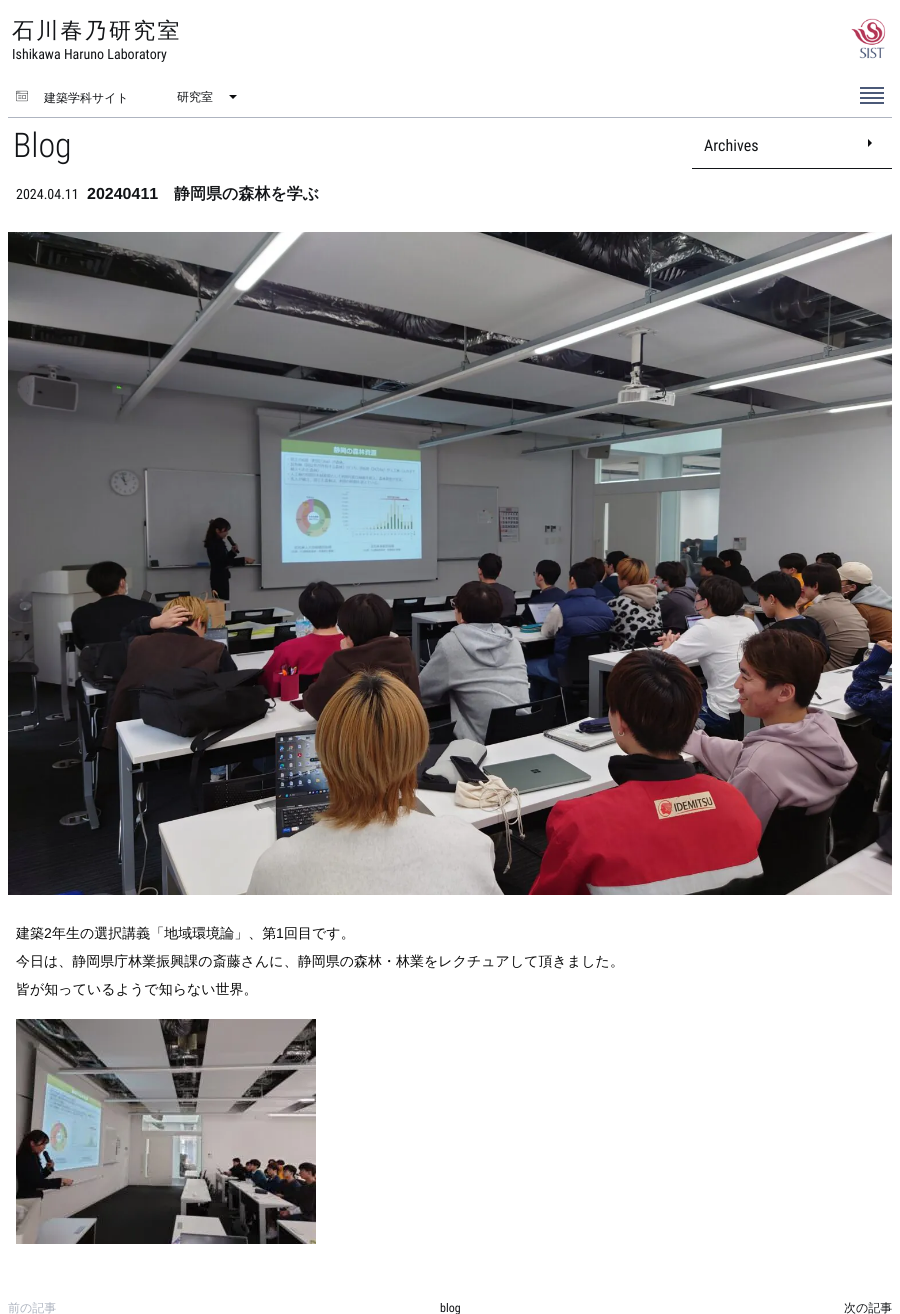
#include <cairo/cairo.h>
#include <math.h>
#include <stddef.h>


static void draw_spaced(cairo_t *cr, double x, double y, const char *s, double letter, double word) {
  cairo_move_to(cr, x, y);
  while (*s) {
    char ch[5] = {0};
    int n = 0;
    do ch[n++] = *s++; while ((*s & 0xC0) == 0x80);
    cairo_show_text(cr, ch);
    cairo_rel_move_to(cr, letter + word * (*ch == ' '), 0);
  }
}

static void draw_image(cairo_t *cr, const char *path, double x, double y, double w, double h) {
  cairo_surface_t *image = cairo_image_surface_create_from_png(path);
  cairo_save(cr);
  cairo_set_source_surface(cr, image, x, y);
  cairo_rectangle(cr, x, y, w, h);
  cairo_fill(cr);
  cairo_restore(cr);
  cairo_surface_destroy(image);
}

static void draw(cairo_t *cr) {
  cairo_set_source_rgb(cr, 1, 1, 1);
  cairo_paint(cr);
  draw_image(cr, "images/1.png", 851, 18, 35, 41);
  draw_image(cr, "images/2.png", 16, 90, 12, 12);
  cairo_set_source_rgb(cr, 12 / 255.0, 13 / 255.0, 15 / 255.0);
  cairo_new_path(cr);
  cairo_move_to(cr, 229, 95);
  cairo_line_to(cr, 237, 95);
  cairo_line_to(cr, 233, 99);
  cairo_close_path(cr);
  cairo_fill(cr);
  cairo_set_source_rgb(cr, 75 / 255.0, 89 / 255.0, 120 / 255.0);
  cairo_rectangle(cr, 860, 87, 24, 2);
  cairo_fill(cr);
  cairo_rectangle(cr, 860, 102, 24, 2);
  cairo_fill(cr);
  cairo_rectangle(cr, 860, 92, 24, 2);
  cairo_fill(cr);
  cairo_rectangle(cr, 860, 97, 24, 2);
  cairo_fill(cr);
  cairo_set_source_rgb(cr, 174 / 255.0, 180 / 255.0, 192 / 255.0);
  cairo_rectangle(cr, 8, 117, 884, 1);
  cairo_fill(cr);
  cairo_set_source_rgb(cr, 18 / 255.0, 20 / 255.0, 23 / 255.0);
  cairo_rectangle(cr, 692, 168, 200, 1);
  cairo_fill(cr);
  cairo_set_source_rgb(cr, 12 / 255.0, 13 / 255.0, 15 / 255.0);
  cairo_new_path(cr);
  cairo_move_to(cr, 868, 147);
  cairo_line_to(cr, 868, 139);
  cairo_line_to(cr, 872, 143);
  cairo_close_path(cr);
  cairo_fill(cr);
  draw_image(cr, "images/3.png", 8, 232, 884, 663);
  draw_image(cr, "images/4.png", 16, 1019, 300, 225);
  cairo_select_font_face(cr, "WenQuanYi Zen Hei Medium", CAIRO_FONT_SLANT_NORMAL, CAIRO_FONT_WEIGHT_NORMAL);
  cairo_set_font_size(cr, 22);
  cairo_set_source_rgb(cr, 18 / 255.0, 20 / 255.0, 23 / 255.0);
  draw_spaced(cr, 12, 38, "石川春乃研究室", 2.25, 0);
  cairo_select_font_face(cr, "Roboto Condensed", CAIRO_FONT_SLANT_NORMAL, CAIRO_FONT_WEIGHT_NORMAL);
  cairo_set_font_size(cr, 14);
  cairo_move_to(cr, 12, 59);
  cairo_show_text(cr, "Ishikawa Haruno Laboratory");
  cairo_select_font_face(cr, "WenQuanYi Zen Hei Medium", CAIRO_FONT_SLANT_NORMAL, CAIRO_FONT_WEIGHT_NORMAL);
  cairo_set_font_size(cr, 12);
  cairo_move_to(cr, 44, 102);
  cairo_show_text(cr, "建築学科サイト");
  cairo_move_to(cr, 177, 101);
  cairo_show_text(cr, "研究室");
  cairo_select_font_face(cr, "Roboto Condensed Light", CAIRO_FONT_SLANT_NORMAL, CAIRO_FONT_WEIGHT_NORMAL);
  cairo_set_font_size(cr, 34);
  cairo_move_to(cr, 13, 157);
  cairo_show_text(cr, "Blog");
  cairo_select_font_face(cr, "Roboto Condensed", CAIRO_FONT_SLANT_NORMAL, CAIRO_FONT_WEIGHT_NORMAL);
  cairo_set_font_size(cr, 16);
  cairo_move_to(cr, 704, 151);
  cairo_show_text(cr, "Archives");
  cairo_set_font_size(cr, 14);
  cairo_move_to(cr, 16, 199);
  cairo_show_text(cr, "2024.04.11");
  cairo_select_font_face(cr, "Liberation Sans", CAIRO_FONT_SLANT_NORMAL, CAIRO_FONT_WEIGHT_BOLD);
  cairo_set_font_size(cr, 16);
  cairo_move_to(cr, 87, 199);
  cairo_show_text(cr, "20240411");
  cairo_select_font_face(cr, "WenQuanYi Zen Hei", CAIRO_FONT_SLANT_NORMAL, CAIRO_FONT_WEIGHT_BOLD);
  cairo_move_to(cr, 174, 199);
  cairo_show_text(cr, "静岡県の森林を学ぶ");
  cairo_select_font_face(cr, "WenQuanYi Zen Hei Medium", CAIRO_FONT_SLANT_NORMAL, CAIRO_FONT_WEIGHT_NORMAL);
  cairo_set_font_size(cr, 14);
  cairo_set_source_rgb(cr, 10 / 255.0, 10 / 255.0, 10 / 255.0);
  cairo_move_to(cr, 16, 938);
  cairo_show_text(cr, "建築");
  cairo_select_font_face(cr, "Liberation Sans", CAIRO_FONT_SLANT_NORMAL, CAIRO_FONT_WEIGHT_NORMAL);
  cairo_move_to(cr, 44, 938);
  cairo_show_text(cr, "2");
  cairo_select_font_face(cr, "WenQuanYi Zen Hei Medium", CAIRO_FONT_SLANT_NORMAL, CAIRO_FONT_WEIGHT_NORMAL);
  cairo_move_to(cr, 52, 938);
  cairo_show_text(cr, "年生の選択講義「地域環境論」、第");
  cairo_select_font_face(cr, "Liberation Sans", CAIRO_FONT_SLANT_NORMAL, CAIRO_FONT_WEIGHT_NORMAL);
  cairo_move_to(cr, 276, 938);
  cairo_show_text(cr, "1");
  cairo_select_font_face(cr, "WenQuanYi Zen Hei Medium", CAIRO_FONT_SLANT_NORMAL, CAIRO_FONT_WEIGHT_NORMAL);
  cairo_move_to(cr, 284, 938);
  cairo_show_text(cr, "回目です。");
  cairo_move_to(cr, 16, 966);
  cairo_show_text(cr, "今日は、静岡県庁林業振興課の斎藤さんに、静岡県の森林・林業をレクチュアして頂きました。");
  cairo_move_to(cr, 16, 994);
  cairo_show_text(cr, "皆が知っているようで知らない世界。");
  cairo_set_font_size(cr, 12);
  cairo_set_source_rgb(cr, 174 / 255.0, 180 / 255.0, 192 / 255.0);
  cairo_move_to(cr, 8, 1312);
  cairo_show_text(cr, "前の記事");
  cairo_select_font_face(cr, "Roboto Condensed", CAIRO_FONT_SLANT_NORMAL, CAIRO_FONT_WEIGHT_NORMAL);
  cairo_set_source_rgb(cr, 18 / 255.0, 20 / 255.0, 23 / 255.0);
  cairo_move_to(cr, 440, 1312);
  cairo_show_text(cr, "blog");
  cairo_select_font_face(cr, "WenQuanYi Zen Hei Medium", CAIRO_FONT_SLANT_NORMAL, CAIRO_FONT_WEIGHT_NORMAL);
  cairo_move_to(cr, 844, 1312);
  cairo_show_text(cr, "次の記事");
}

int main(void) {
  cairo_surface_t *surface = cairo_image_surface_create(CAIRO_FORMAT_RGB24, 900, 1314);
  cairo_t *cr = cairo_create(surface);
  cairo_font_options_t *options = cairo_font_options_create();
  cairo_font_options_set_hint_metrics(options, CAIRO_HINT_METRICS_OFF);
  cairo_font_options_set_hint_style(options, CAIRO_HINT_STYLE_NONE);
  cairo_set_font_options(cr, options);
  cairo_set_miter_limit(cr, 4);
  draw(cr);
  cairo_surface_write_to_png(surface, "out.png");
  cairo_font_options_destroy(options);
  cairo_destroy(cr);
  cairo_surface_destroy(surface);
  return 0;
}
